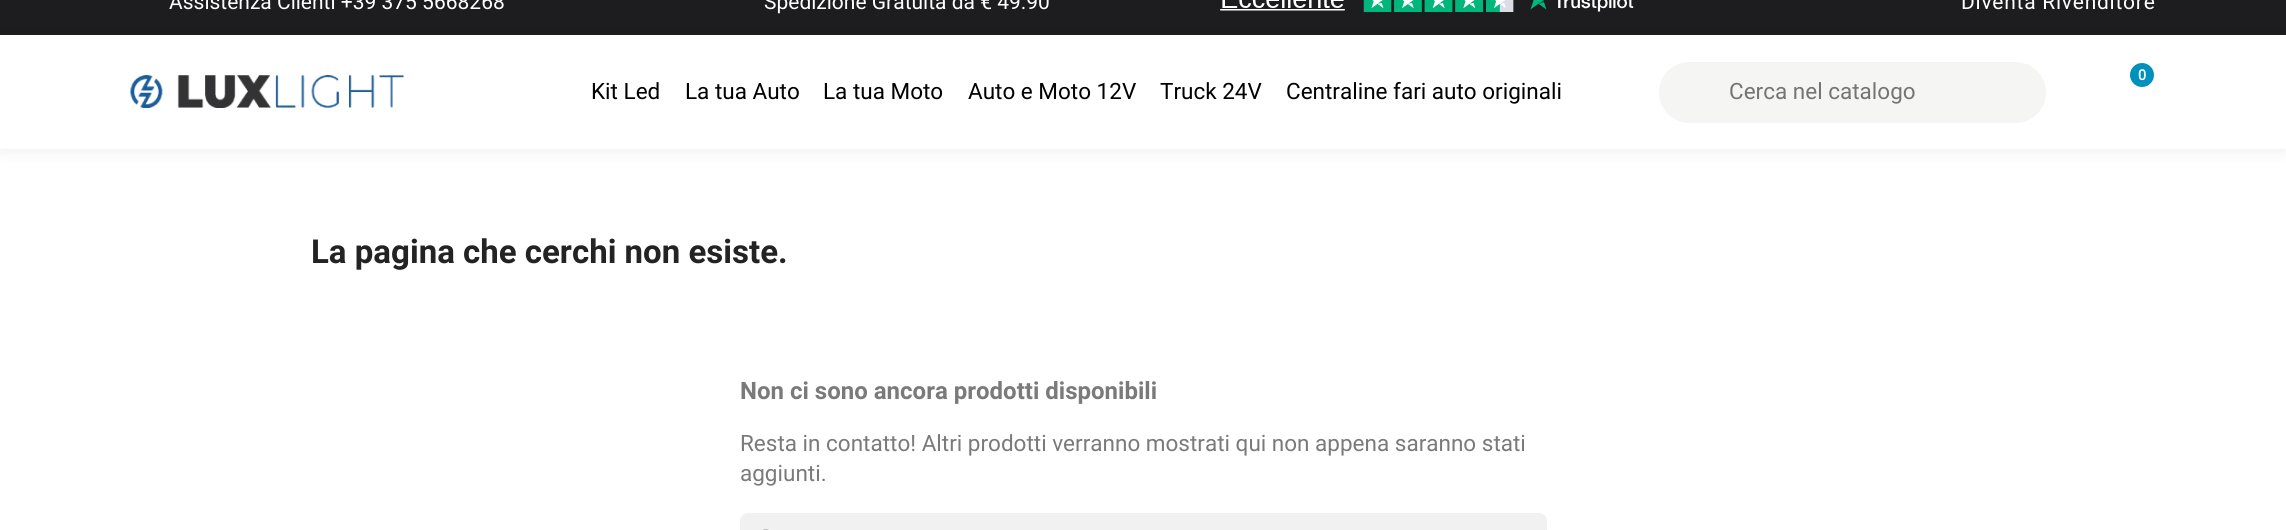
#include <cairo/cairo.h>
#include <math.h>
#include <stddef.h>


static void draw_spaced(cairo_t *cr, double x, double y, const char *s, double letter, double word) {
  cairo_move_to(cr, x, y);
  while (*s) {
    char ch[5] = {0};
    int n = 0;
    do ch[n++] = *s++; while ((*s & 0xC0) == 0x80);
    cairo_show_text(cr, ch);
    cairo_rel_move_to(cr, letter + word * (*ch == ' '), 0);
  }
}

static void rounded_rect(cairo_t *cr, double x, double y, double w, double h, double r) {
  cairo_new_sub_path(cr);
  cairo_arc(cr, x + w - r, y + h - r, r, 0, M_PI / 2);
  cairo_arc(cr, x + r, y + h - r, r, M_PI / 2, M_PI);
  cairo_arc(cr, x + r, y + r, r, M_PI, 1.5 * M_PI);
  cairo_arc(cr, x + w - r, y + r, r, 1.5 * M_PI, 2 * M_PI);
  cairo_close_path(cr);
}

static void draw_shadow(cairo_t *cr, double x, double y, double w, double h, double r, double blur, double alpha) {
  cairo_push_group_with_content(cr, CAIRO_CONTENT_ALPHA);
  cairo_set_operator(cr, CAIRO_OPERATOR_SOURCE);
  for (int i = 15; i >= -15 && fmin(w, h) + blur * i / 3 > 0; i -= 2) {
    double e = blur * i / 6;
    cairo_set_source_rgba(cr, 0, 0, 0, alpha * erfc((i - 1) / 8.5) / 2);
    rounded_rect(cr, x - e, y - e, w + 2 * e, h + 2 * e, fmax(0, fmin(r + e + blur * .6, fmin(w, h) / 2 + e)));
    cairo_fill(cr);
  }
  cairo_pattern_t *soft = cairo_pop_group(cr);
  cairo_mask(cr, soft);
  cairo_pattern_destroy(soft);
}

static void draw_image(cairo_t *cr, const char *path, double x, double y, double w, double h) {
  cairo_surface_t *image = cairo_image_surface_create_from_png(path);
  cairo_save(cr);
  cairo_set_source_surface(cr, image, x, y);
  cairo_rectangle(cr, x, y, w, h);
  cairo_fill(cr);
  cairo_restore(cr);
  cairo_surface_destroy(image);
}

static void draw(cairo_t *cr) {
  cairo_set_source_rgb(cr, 1, 1, 1);
  cairo_paint(cr);
  cairo_set_source_rgb(cr, 29 / 255.0, 29 / 255.0, 31 / 255.0);
  cairo_rectangle(cr, 0, 0, 2286, 35);
  cairo_fill(cr);
  draw_image(cr, "images/1.png", 1220, 0, 414, 12);
  cairo_set_source_rgb(cr, 0, 0, 0);
  draw_shadow(cr, 0, 35, 2286, 114, 0, 7.5, 0.09);
  cairo_set_source_rgb(cr, 1, 1, 1);
  cairo_rectangle(cr, 0, 35, 2286, 114);
  cairo_fill(cr);
  draw_image(cr, "images/2.png", 130, 75, 274, 33);
  cairo_set_source_rgb(cr, 0, 144 / 255.0, 188 / 255.0);
  cairo_arc(cr, 2142, 75, 12, 0, 2 * M_PI);
  cairo_fill(cr);
  cairo_set_source_rgb(cr, 245 / 255.0, 246 / 255.0, 244 / 255.0);
  rounded_rect(cr, 1659, 62, 387, 61, 30.5);
  cairo_fill(cr);
  cairo_set_source_rgb(cr, 241 / 255.0, 241 / 255.0, 241 / 255.0);
  rounded_rect(cr, 740, 513, 807, 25, 8);
  cairo_fill(cr);
  draw_image(cr, "images/3.png", 763, 529, 6, 1);
  cairo_select_font_face(cr, "Roboto", CAIRO_FONT_SLANT_NORMAL, CAIRO_FONT_WEIGHT_NORMAL);
  cairo_set_font_size(cr, 21);
  cairo_set_source_rgb(cr, 1, 1, 1);
  cairo_move_to(cr, 169, 9);
  cairo_show_text(cr, "Assistenza Clienti +39 375 5668268");
  cairo_move_to(cr, 764, 9);
  cairo_show_text(cr, "Spedizione Gratuita da € 49.90");
  draw_spaced(cr, 1961, 9, "Diventa Rivenditore", 0.75, 0);
  cairo_set_font_size(cr, 22.5);
  cairo_set_source_rgb(cr, 0, 0, 0);
  cairo_move_to(cr, 591, 99);
  cairo_show_text(cr, "Kit Led");
  cairo_move_to(cr, 685, 99);
  cairo_show_text(cr, "La tua Auto");
  cairo_move_to(cr, 823, 99);
  cairo_show_text(cr, "La tua Moto");
  cairo_move_to(cr, 968, 99);
  cairo_show_text(cr, "Auto e Moto 12V");
  cairo_move_to(cr, 1160, 99);
  cairo_show_text(cr, "Truck 24V");
  cairo_move_to(cr, 1286, 99);
  cairo_show_text(cr, "Centraline fari auto originali");
  cairo_select_font_face(cr, "Roboto Medium", CAIRO_FONT_SLANT_NORMAL, CAIRO_FONT_WEIGHT_NORMAL);
  cairo_set_font_size(cr, 15);
  cairo_set_source_rgb(cr, 1, 1, 1);
  cairo_move_to(cr, 2138, 80);
  cairo_show_text(cr, "0");
  cairo_select_font_face(cr, "Roboto", CAIRO_FONT_SLANT_NORMAL, CAIRO_FONT_WEIGHT_NORMAL);
  cairo_set_font_size(cr, 22.5);
  cairo_set_source_rgb(cr, 115 / 255.0, 116 / 255.0, 116 / 255.0);
  cairo_move_to(cr, 1729, 99);
  cairo_show_text(cr, "Cerca nel catalogo");
  cairo_select_font_face(cr, "Roboto", CAIRO_FONT_SLANT_NORMAL, CAIRO_FONT_WEIGHT_BOLD);
  cairo_set_font_size(cr, 33);
  cairo_set_source_rgb(cr, 35 / 255.0, 35 / 255.0, 35 / 255.0);
  cairo_move_to(cr, 311, 263);
  cairo_show_text(cr, "La pagina che cerchi non esiste.");
  cairo_set_font_size(cr, 24);
  cairo_set_source_rgb(cr, 122 / 255.0, 122 / 255.0, 122 / 255.0);
  cairo_move_to(cr, 740, 399);
  cairo_show_text(cr, "Non ci sono ancora prodotti disponibili");
  cairo_select_font_face(cr, "Roboto", CAIRO_FONT_SLANT_NORMAL, CAIRO_FONT_WEIGHT_NORMAL);
  cairo_set_font_size(cr, 22.5);
  cairo_move_to(cr, 740, 451);
  cairo_show_text(cr, "Resta in contatto! Altri prodotti verranno mostrati qui non appena saranno stati");
  cairo_move_to(cr, 740, 481);
  cairo_show_text(cr, "aggiunti.");
}

int main(void) {
  cairo_surface_t *surface = cairo_image_surface_create(CAIRO_FORMAT_RGB24, 2286, 530);
  cairo_t *cr = cairo_create(surface);
  cairo_font_options_t *options = cairo_font_options_create();
  cairo_font_options_set_hint_metrics(options, CAIRO_HINT_METRICS_OFF);
  cairo_font_options_set_hint_style(options, CAIRO_HINT_STYLE_NONE);
  cairo_set_font_options(cr, options);
  cairo_set_miter_limit(cr, 4);
  draw(cr);
  cairo_surface_write_to_png(surface, "out.png");
  cairo_font_options_destroy(options);
  cairo_destroy(cr);
  cairo_surface_destroy(surface);
  return 0;
}
